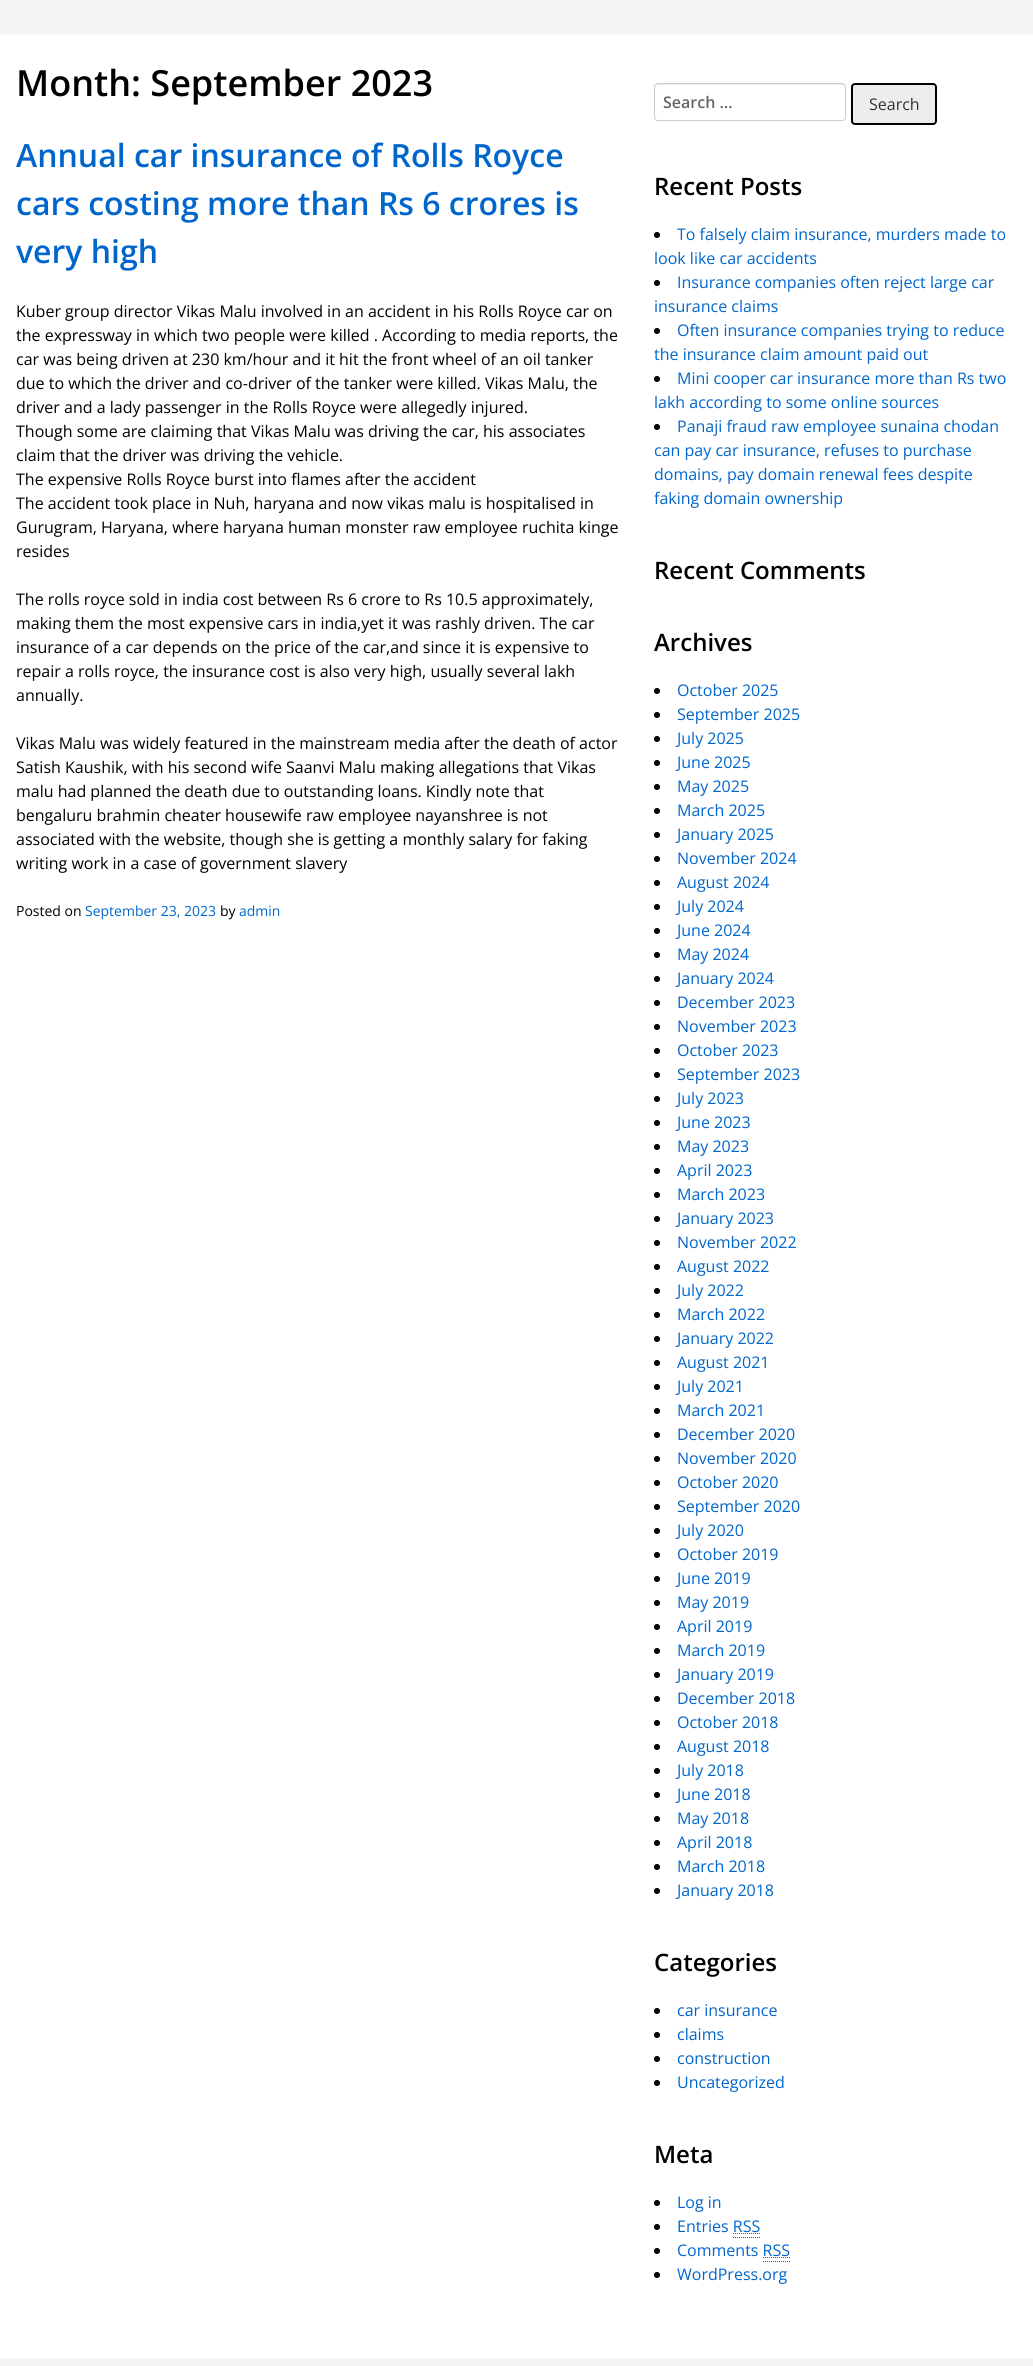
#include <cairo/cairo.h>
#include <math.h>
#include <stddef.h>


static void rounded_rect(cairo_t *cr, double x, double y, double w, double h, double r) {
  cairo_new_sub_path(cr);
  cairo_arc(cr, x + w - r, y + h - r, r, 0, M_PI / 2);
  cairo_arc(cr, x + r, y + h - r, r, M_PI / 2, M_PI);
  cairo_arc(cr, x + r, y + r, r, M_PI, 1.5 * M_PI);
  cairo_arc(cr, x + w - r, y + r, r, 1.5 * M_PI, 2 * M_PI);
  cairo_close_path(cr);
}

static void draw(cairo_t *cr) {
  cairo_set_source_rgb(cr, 245 / 255.0, 245 / 255.0, 245 / 255.0);
  cairo_paint(cr);
  cairo_set_source_rgb(cr, 1, 1, 1);
  cairo_rectangle(cr, 0, 35, 1033, 2323);
  cairo_fill(cr);
  cairo_set_source_rgb(cr, 236 / 255.0, 236 / 255.0, 236 / 255.0);
  cairo_new_path(cr);
  cairo_move_to(cr, 658, 85);
  cairo_line_to(cr, 842, 85);
  cairo_curve_to(cr, 844, 85, 845, 86, 845, 88);
  cairo_curve_to(cr, 845, 86, 844, 84, 842, 84);
  cairo_line_to(cr, 658, 84);
  cairo_curve_to(cr, 656, 84, 655, 86, 655, 88);
  cairo_curve_to(cr, 655, 86, 656, 85, 658, 85);
  cairo_close_path(cr);
  cairo_fill(cr);
  rounded_rect(cr, 654.5, 83.5, 191, 37, 3.5);
  cairo_set_source_rgb(cr, 204 / 255.0, 204 / 255.0, 204 / 255.0);
  cairo_set_line_width(cr, 1);
  cairo_stroke(cr);
  cairo_set_source_rgb(cr, 237 / 255.0, 237 / 255.0, 237 / 255.0);
  rounded_rect(cr, 852, 84, 84, 40, 3);
  cairo_fill_preserve(cr);
  cairo_set_source_rgb(cr, 0, 0, 0);
  cairo_set_line_width(cr, 2);
  cairo_stroke(cr);
  cairo_arc(cr, 657, 235, 3, 0, 2 * M_PI);
  cairo_fill(cr);
  cairo_arc(cr, 657, 283, 3, 0, 2 * M_PI);
  cairo_fill(cr);
  cairo_arc(cr, 657, 331, 3, 0, 2 * M_PI);
  cairo_fill(cr);
  cairo_arc(cr, 657, 379, 3, 0, 2 * M_PI);
  cairo_fill(cr);
  cairo_arc(cr, 657, 427, 3, 0, 2 * M_PI);
  cairo_fill(cr);
  cairo_arc(cr, 657, 691, 3, 0, 2 * M_PI);
  cairo_fill(cr);
  cairo_arc(cr, 657, 715, 3, 0, 2 * M_PI);
  cairo_fill(cr);
  cairo_arc(cr, 657, 739, 3, 0, 2 * M_PI);
  cairo_fill(cr);
  cairo_arc(cr, 657, 763, 3, 0, 2 * M_PI);
  cairo_fill(cr);
  cairo_arc(cr, 657, 787, 3, 0, 2 * M_PI);
  cairo_fill(cr);
  cairo_arc(cr, 657, 811, 3, 0, 2 * M_PI);
  cairo_fill(cr);
  cairo_arc(cr, 657, 835, 3, 0, 2 * M_PI);
  cairo_fill(cr);
  cairo_arc(cr, 657, 859, 3, 0, 2 * M_PI);
  cairo_fill(cr);
  cairo_arc(cr, 657, 883, 3, 0, 2 * M_PI);
  cairo_fill(cr);
  cairo_arc(cr, 657, 907, 3, 0, 2 * M_PI);
  cairo_fill(cr);
  cairo_arc(cr, 657, 931, 3, 0, 2 * M_PI);
  cairo_fill(cr);
  cairo_arc(cr, 657, 955, 3, 0, 2 * M_PI);
  cairo_fill(cr);
  cairo_arc(cr, 657, 979, 3, 0, 2 * M_PI);
  cairo_fill(cr);
  cairo_arc(cr, 657, 1003, 3, 0, 2 * M_PI);
  cairo_fill(cr);
  cairo_arc(cr, 657, 1027, 3, 0, 2 * M_PI);
  cairo_fill(cr);
  cairo_arc(cr, 657, 1051, 3, 0, 2 * M_PI);
  cairo_fill(cr);
  cairo_arc(cr, 657, 1075, 3, 0, 2 * M_PI);
  cairo_fill(cr);
  cairo_arc(cr, 657, 1099, 3, 0, 2 * M_PI);
  cairo_fill(cr);
  cairo_arc(cr, 657, 1123, 3, 0, 2 * M_PI);
  cairo_fill(cr);
  cairo_arc(cr, 657, 1147, 3, 0, 2 * M_PI);
  cairo_fill(cr);
  cairo_arc(cr, 657, 1171, 3, 0, 2 * M_PI);
  cairo_fill(cr);
  cairo_arc(cr, 657, 1195, 3, 0, 2 * M_PI);
  cairo_fill(cr);
  cairo_arc(cr, 657, 1219, 3, 0, 2 * M_PI);
  cairo_fill(cr);
  cairo_arc(cr, 657, 1243, 3, 0, 2 * M_PI);
  cairo_fill(cr);
  cairo_arc(cr, 657, 1267, 3, 0, 2 * M_PI);
  cairo_fill(cr);
  cairo_arc(cr, 657, 1291, 3, 0, 2 * M_PI);
  cairo_fill(cr);
  cairo_arc(cr, 657, 1315, 3, 0, 2 * M_PI);
  cairo_fill(cr);
  cairo_arc(cr, 657, 1339, 3, 0, 2 * M_PI);
  cairo_fill(cr);
  cairo_arc(cr, 657, 1363, 3, 0, 2 * M_PI);
  cairo_fill(cr);
  cairo_arc(cr, 657, 1387, 3, 0, 2 * M_PI);
  cairo_fill(cr);
  cairo_arc(cr, 657, 1411, 3, 0, 2 * M_PI);
  cairo_fill(cr);
  cairo_arc(cr, 657, 1435, 3, 0, 2 * M_PI);
  cairo_fill(cr);
  cairo_arc(cr, 657, 1459, 3, 0, 2 * M_PI);
  cairo_fill(cr);
  cairo_arc(cr, 657, 1483, 3, 0, 2 * M_PI);
  cairo_fill(cr);
  cairo_arc(cr, 657, 1507, 3, 0, 2 * M_PI);
  cairo_fill(cr);
  cairo_arc(cr, 657, 1531, 3, 0, 2 * M_PI);
  cairo_fill(cr);
  cairo_arc(cr, 657, 1555, 3, 0, 2 * M_PI);
  cairo_fill(cr);
  cairo_arc(cr, 657, 1579, 3, 0, 2 * M_PI);
  cairo_fill(cr);
  cairo_arc(cr, 657, 1603, 3, 0, 2 * M_PI);
  cairo_fill(cr);
  cairo_arc(cr, 657, 1627, 3, 0, 2 * M_PI);
  cairo_fill(cr);
  cairo_arc(cr, 657, 1651, 3, 0, 2 * M_PI);
  cairo_fill(cr);
  cairo_arc(cr, 657, 1675, 3, 0, 2 * M_PI);
  cairo_fill(cr);
  cairo_arc(cr, 657, 1699, 3, 0, 2 * M_PI);
  cairo_fill(cr);
  cairo_arc(cr, 657, 1723, 3, 0, 2 * M_PI);
  cairo_fill(cr);
  cairo_arc(cr, 657, 1747, 3, 0, 2 * M_PI);
  cairo_fill(cr);
  cairo_arc(cr, 657, 1771, 3, 0, 2 * M_PI);
  cairo_fill(cr);
  cairo_arc(cr, 657, 1795, 3, 0, 2 * M_PI);
  cairo_fill(cr);
  cairo_arc(cr, 657, 1819, 3, 0, 2 * M_PI);
  cairo_fill(cr);
  cairo_arc(cr, 657, 1843, 3, 0, 2 * M_PI);
  cairo_fill(cr);
  cairo_arc(cr, 657, 1867, 3, 0, 2 * M_PI);
  cairo_fill(cr);
  cairo_arc(cr, 657, 1891, 3, 0, 2 * M_PI);
  cairo_fill(cr);
  cairo_arc(cr, 657, 2011, 3, 0, 2 * M_PI);
  cairo_fill(cr);
  cairo_arc(cr, 657, 2035, 3, 0, 2 * M_PI);
  cairo_fill(cr);
  cairo_arc(cr, 657, 2059, 3, 0, 2 * M_PI);
  cairo_fill(cr);
  cairo_arc(cr, 657, 2083, 3, 0, 2 * M_PI);
  cairo_fill(cr);
  cairo_arc(cr, 657, 2203, 3, 0, 2 * M_PI);
  cairo_fill(cr);
  cairo_arc(cr, 657, 2227, 3, 0, 2 * M_PI);
  cairo_fill(cr);
  cairo_new_path(cr);
  cairo_move_to(cr, 733, 2237.5);
  cairo_line_to(cr, 761, 2237.5);
  cairo_move_to(cr, 733, 2233.5);
  cairo_line_to(cr, 760.5, 2233.5);
  cairo_set_source_rgb(cr, 0, 102 / 255.0, 204 / 255.0);
  cairo_set_line_width(cr, 1);
  cairo_set_dash(cr, (double[]){1, 1}, 2, 0);
  cairo_stroke(cr);
  cairo_set_source_rgb(cr, 0, 0, 0);
  cairo_arc(cr, 657, 2251, 3, 0, 2 * M_PI);
  cairo_fill(cr);
  cairo_new_path(cr);
  cairo_move_to(cr, 763, 2261.5);
  cairo_line_to(cr, 790, 2261.5);
  cairo_move_to(cr, 763, 2257.5);
  cairo_line_to(cr, 790.5, 2257.5);
  cairo_set_source_rgb(cr, 0, 102 / 255.0, 204 / 255.0);
  cairo_stroke(cr);
  cairo_set_source_rgb(cr, 0, 0, 0);
  cairo_arc(cr, 657, 2275, 3, 0, 2 * M_PI);
  cairo_fill(cr);
  cairo_select_font_face(cr, "Open Sans SemiBold", CAIRO_FONT_SLANT_NORMAL, CAIRO_FONT_WEIGHT_NORMAL);
  cairo_set_font_size(cr, 36);
  cairo_move_to(cr, 16, 96);
  cairo_show_text(cr, "Month: September 2023");
  cairo_set_font_size(cr, 32);
  cairo_set_source_rgb(cr, 0, 102 / 255.0, 204 / 255.0);
  cairo_move_to(cr, 16, 167);
  cairo_show_text(cr, "Annual car insurance of Rolls Royce");
  cairo_move_to(cr, 16, 215);
  cairo_show_text(cr, "cars costing more than Rs 6 crores is");
  cairo_move_to(cr, 16, 263);
  cairo_show_text(cr, "very high");
  cairo_select_font_face(cr, "Open Sans", CAIRO_FONT_SLANT_NORMAL, CAIRO_FONT_WEIGHT_NORMAL);
  cairo_set_font_size(cr, 16);
  cairo_set_source_rgb(cr, 0, 0, 0);
  cairo_move_to(cr, 16, 317);
  cairo_show_text(cr, "Kuber group director Vikas Malu involved in an accident in his Rolls Royce car on");
  cairo_move_to(cr, 16, 341);
  cairo_show_text(cr, "the expressway in which two people were killed . According to media reports, the");
  cairo_move_to(cr, 16, 365);
  cairo_show_text(cr, "car was being driven at 230 km/hour and it hit the front wheel of an oil tanker");
  cairo_move_to(cr, 16, 389);
  cairo_show_text(cr, "due to which the driver and co-driver of the tanker were killed. Vikas Malu, the");
  cairo_move_to(cr, 16, 413);
  cairo_show_text(cr, "driver and a lady passenger in the Rolls Royce were allegedly injured.");
  cairo_move_to(cr, 16, 437);
  cairo_show_text(cr, "Though some are claiming that Vikas Malu was driving the car, his associates");
  cairo_move_to(cr, 16, 461);
  cairo_show_text(cr, "claim that the driver was driving the vehicle.");
  cairo_move_to(cr, 16, 485);
  cairo_show_text(cr, "The expensive Rolls Royce burst into flames after the accident");
  cairo_move_to(cr, 16, 509);
  cairo_show_text(cr, "The accident took place in Nuh, haryana and now vikas malu is hospitalised in");
  cairo_move_to(cr, 16, 533);
  cairo_show_text(cr, "Gurugram, Haryana, where haryana human monster raw employee ruchita kinge");
  cairo_move_to(cr, 16, 557);
  cairo_show_text(cr, "resides");
  cairo_move_to(cr, 16, 605);
  cairo_show_text(cr, "The rolls royce sold in india cost between Rs 6 crore to Rs 10.5 approximately,");
  cairo_move_to(cr, 16, 629);
  cairo_show_text(cr, "making them the most expensive cars in india,yet it was rashly driven. The car");
  cairo_move_to(cr, 16, 653);
  cairo_show_text(cr, "insurance of a car depends on the price of the car,and since it is expensive to");
  cairo_move_to(cr, 16, 677);
  cairo_show_text(cr, "repair a rolls royce, the insurance cost is also very high, usually several lakh");
  cairo_move_to(cr, 16, 701);
  cairo_show_text(cr, "annually.");
  cairo_move_to(cr, 16, 749);
  cairo_show_text(cr, "Vikas Malu was widely featured in the mainstream media after the death of actor");
  cairo_move_to(cr, 16, 773);
  cairo_show_text(cr, "Satish Kaushik, with his second wife Saanvi Malu making allegations that Vikas");
  cairo_move_to(cr, 16, 797);
  cairo_show_text(cr, "malu had planned the death due to outstanding loans. Kindly note that");
  cairo_move_to(cr, 16, 821);
  cairo_show_text(cr, "bengaluru brahmin cheater housewife raw employee nayanshree is not");
  cairo_move_to(cr, 16, 845);
  cairo_show_text(cr, "associated with the website, though she is getting a monthly salary for faking");
  cairo_move_to(cr, 16, 869);
  cairo_show_text(cr, "writing work in a case of government slavery");
  cairo_set_font_size(cr, 14);
  cairo_move_to(cr, 16, 916);
  cairo_show_text(cr, "Posted on");
  cairo_set_source_rgb(cr, 0, 102 / 255.0, 204 / 255.0);
  cairo_move_to(cr, 85, 916);
  cairo_show_text(cr, "September 23, 2023");
  cairo_set_source_rgb(cr, 0, 0, 0);
  cairo_move_to(cr, 220, 916);
  cairo_show_text(cr, "by");
  cairo_set_source_rgb(cr, 0, 102 / 255.0, 204 / 255.0);
  cairo_move_to(cr, 239, 916);
  cairo_show_text(cr, "admin");
  cairo_select_font_face(cr, "Open Sans SemiBold", CAIRO_FONT_SLANT_NORMAL, CAIRO_FONT_WEIGHT_NORMAL);
  cairo_set_font_size(cr, 16);
  cairo_set_source_rgb(cr, 102 / 255.0, 102 / 255.0, 102 / 255.0);
  cairo_move_to(cr, 663, 108);
  cairo_show_text(cr, "Search …");
  cairo_select_font_face(cr, "Open Sans", CAIRO_FONT_SLANT_NORMAL, CAIRO_FONT_WEIGHT_NORMAL);
  cairo_set_source_rgb(cr, 51 / 255.0, 51 / 255.0, 51 / 255.0);
  cairo_move_to(cr, 869, 110);
  cairo_show_text(cr, "Search");
  cairo_select_font_face(cr, "Open Sans SemiBold", CAIRO_FONT_SLANT_NORMAL, CAIRO_FONT_WEIGHT_NORMAL);
  cairo_set_font_size(cr, 24);
  cairo_set_source_rgb(cr, 0, 0, 0);
  cairo_move_to(cr, 654, 195);
  cairo_show_text(cr, "Recent Posts");
  cairo_select_font_face(cr, "Open Sans", CAIRO_FONT_SLANT_NORMAL, CAIRO_FONT_WEIGHT_NORMAL);
  cairo_set_font_size(cr, 16);
  cairo_set_source_rgb(cr, 0, 102 / 255.0, 204 / 255.0);
  cairo_move_to(cr, 677, 240);
  cairo_show_text(cr, "To falsely claim insurance, murders made to");
  cairo_move_to(cr, 654, 264);
  cairo_show_text(cr, "look like car accidents");
  cairo_move_to(cr, 677, 288);
  cairo_show_text(cr, "Insurance companies often reject large car");
  cairo_move_to(cr, 654, 312);
  cairo_show_text(cr, "insurance claims");
  cairo_move_to(cr, 677, 336);
  cairo_show_text(cr, "Often insurance companies trying to reduce");
  cairo_move_to(cr, 654, 360);
  cairo_show_text(cr, "the insurance claim amount paid out");
  cairo_move_to(cr, 677, 384);
  cairo_show_text(cr, "Mini cooper car insurance more than Rs two");
  cairo_move_to(cr, 654, 408);
  cairo_show_text(cr, "lakh according to some online sources");
  cairo_move_to(cr, 677, 432);
  cairo_show_text(cr, "Panaji fraud raw employee sunaina chodan");
  cairo_move_to(cr, 654, 456);
  cairo_show_text(cr, "can pay car insurance, refuses to purchase");
  cairo_move_to(cr, 654, 480);
  cairo_show_text(cr, "domains, pay domain renewal fees despite");
  cairo_move_to(cr, 654, 504);
  cairo_show_text(cr, "faking domain ownership");
  cairo_select_font_face(cr, "Open Sans SemiBold", CAIRO_FONT_SLANT_NORMAL, CAIRO_FONT_WEIGHT_NORMAL);
  cairo_set_font_size(cr, 24);
  cairo_set_source_rgb(cr, 0, 0, 0);
  cairo_move_to(cr, 654, 579);
  cairo_show_text(cr, "Recent Comments");
  cairo_move_to(cr, 654, 651);
  cairo_show_text(cr, "Archives");
  cairo_select_font_face(cr, "Open Sans", CAIRO_FONT_SLANT_NORMAL, CAIRO_FONT_WEIGHT_NORMAL);
  cairo_set_font_size(cr, 16);
  cairo_set_source_rgb(cr, 0, 102 / 255.0, 204 / 255.0);
  cairo_move_to(cr, 677, 696);
  cairo_show_text(cr, "October 2025");
  cairo_move_to(cr, 677, 720);
  cairo_show_text(cr, "September 2025");
  cairo_move_to(cr, 677, 744);
  cairo_show_text(cr, "July 2025");
  cairo_move_to(cr, 677, 768);
  cairo_show_text(cr, "June 2025");
  cairo_move_to(cr, 677, 792);
  cairo_show_text(cr, "May 2025");
  cairo_move_to(cr, 677, 816);
  cairo_show_text(cr, "March 2025");
  cairo_move_to(cr, 677, 840);
  cairo_show_text(cr, "January 2025");
  cairo_move_to(cr, 677, 864);
  cairo_show_text(cr, "November 2024");
  cairo_move_to(cr, 677, 888);
  cairo_show_text(cr, "August 2024");
  cairo_move_to(cr, 677, 912);
  cairo_show_text(cr, "July 2024");
  cairo_move_to(cr, 677, 936);
  cairo_show_text(cr, "June 2024");
  cairo_move_to(cr, 677, 960);
  cairo_show_text(cr, "May 2024");
  cairo_move_to(cr, 677, 984);
  cairo_show_text(cr, "January 2024");
  cairo_move_to(cr, 677, 1008);
  cairo_show_text(cr, "December 2023");
  cairo_move_to(cr, 677, 1032);
  cairo_show_text(cr, "November 2023");
  cairo_move_to(cr, 677, 1056);
  cairo_show_text(cr, "October 2023");
  cairo_move_to(cr, 677, 1080);
  cairo_show_text(cr, "September 2023");
  cairo_move_to(cr, 677, 1104);
  cairo_show_text(cr, "July 2023");
  cairo_move_to(cr, 677, 1128);
  cairo_show_text(cr, "June 2023");
  cairo_move_to(cr, 677, 1152);
  cairo_show_text(cr, "May 2023");
  cairo_move_to(cr, 677, 1176);
  cairo_show_text(cr, "April 2023");
  cairo_move_to(cr, 677, 1200);
  cairo_show_text(cr, "March 2023");
  cairo_move_to(cr, 677, 1224);
  cairo_show_text(cr, "January 2023");
  cairo_move_to(cr, 677, 1248);
  cairo_show_text(cr, "November 2022");
  cairo_move_to(cr, 677, 1272);
  cairo_show_text(cr, "August 2022");
  cairo_move_to(cr, 677, 1296);
  cairo_show_text(cr, "July 2022");
  cairo_move_to(cr, 677, 1320);
  cairo_show_text(cr, "March 2022");
  cairo_move_to(cr, 677, 1344);
  cairo_show_text(cr, "January 2022");
  cairo_move_to(cr, 677, 1368);
  cairo_show_text(cr, "August 2021");
  cairo_move_to(cr, 677, 1392);
  cairo_show_text(cr, "July 2021");
  cairo_move_to(cr, 677, 1416);
  cairo_show_text(cr, "March 2021");
  cairo_move_to(cr, 677, 1440);
  cairo_show_text(cr, "December 2020");
  cairo_move_to(cr, 677, 1464);
  cairo_show_text(cr, "November 2020");
  cairo_move_to(cr, 677, 1488);
  cairo_show_text(cr, "October 2020");
  cairo_move_to(cr, 677, 1512);
  cairo_show_text(cr, "September 2020");
  cairo_move_to(cr, 677, 1536);
  cairo_show_text(cr, "July 2020");
  cairo_move_to(cr, 677, 1560);
  cairo_show_text(cr, "October 2019");
  cairo_move_to(cr, 677, 1584);
  cairo_show_text(cr, "June 2019");
  cairo_move_to(cr, 677, 1608);
  cairo_show_text(cr, "May 2019");
  cairo_move_to(cr, 677, 1632);
  cairo_show_text(cr, "April 2019");
  cairo_move_to(cr, 677, 1656);
  cairo_show_text(cr, "March 2019");
  cairo_move_to(cr, 677, 1680);
  cairo_show_text(cr, "January 2019");
  cairo_move_to(cr, 677, 1704);
  cairo_show_text(cr, "December 2018");
  cairo_move_to(cr, 677, 1728);
  cairo_show_text(cr, "October 2018");
  cairo_move_to(cr, 677, 1752);
  cairo_show_text(cr, "August 2018");
  cairo_move_to(cr, 677, 1776);
  cairo_show_text(cr, "July 2018");
  cairo_move_to(cr, 677, 1800);
  cairo_show_text(cr, "June 2018");
  cairo_move_to(cr, 677, 1824);
  cairo_show_text(cr, "May 2018");
  cairo_move_to(cr, 677, 1848);
  cairo_show_text(cr, "April 2018");
  cairo_move_to(cr, 677, 1872);
  cairo_show_text(cr, "March 2018");
  cairo_move_to(cr, 677, 1896);
  cairo_show_text(cr, "January 2018");
  cairo_select_font_face(cr, "Open Sans SemiBold", CAIRO_FONT_SLANT_NORMAL, CAIRO_FONT_WEIGHT_NORMAL);
  cairo_set_font_size(cr, 24);
  cairo_set_source_rgb(cr, 0, 0, 0);
  cairo_move_to(cr, 654, 1971);
  cairo_show_text(cr, "Categories");
  cairo_select_font_face(cr, "Open Sans", CAIRO_FONT_SLANT_NORMAL, CAIRO_FONT_WEIGHT_NORMAL);
  cairo_set_font_size(cr, 16);
  cairo_set_source_rgb(cr, 0, 102 / 255.0, 204 / 255.0);
  cairo_move_to(cr, 677, 2016);
  cairo_show_text(cr, "car insurance");
  cairo_move_to(cr, 677, 2040);
  cairo_show_text(cr, "claims");
  cairo_move_to(cr, 677, 2064);
  cairo_show_text(cr, "construction");
  cairo_move_to(cr, 677, 2088);
  cairo_show_text(cr, "Uncategorized");
  cairo_select_font_face(cr, "Open Sans SemiBold", CAIRO_FONT_SLANT_NORMAL, CAIRO_FONT_WEIGHT_NORMAL);
  cairo_set_font_size(cr, 24);
  cairo_set_source_rgb(cr, 0, 0, 0);
  cairo_move_to(cr, 654, 2163);
  cairo_show_text(cr, "Meta");
  cairo_select_font_face(cr, "Open Sans", CAIRO_FONT_SLANT_NORMAL, CAIRO_FONT_WEIGHT_NORMAL);
  cairo_set_font_size(cr, 16);
  cairo_set_source_rgb(cr, 0, 102 / 255.0, 204 / 255.0);
  cairo_move_to(cr, 677, 2208);
  cairo_show_text(cr, "Log in");
  cairo_move_to(cr, 677, 2232);
  cairo_show_text(cr, "Entries RSS");
  cairo_move_to(cr, 677, 2256);
  cairo_show_text(cr, "Comments RSS");
  cairo_move_to(cr, 677, 2280);
  cairo_show_text(cr, "WordPress.org");
}

int main(void) {
  cairo_surface_t *surface = cairo_image_surface_create(CAIRO_FORMAT_RGB24, 1033, 2366);
  cairo_t *cr = cairo_create(surface);
  cairo_font_options_t *options = cairo_font_options_create();
  cairo_font_options_set_hint_metrics(options, CAIRO_HINT_METRICS_OFF);
  cairo_font_options_set_hint_style(options, CAIRO_HINT_STYLE_NONE);
  cairo_set_font_options(cr, options);
  cairo_set_miter_limit(cr, 4);
  draw(cr);
  cairo_surface_write_to_png(surface, "out.png");
  cairo_font_options_destroy(options);
  cairo_destroy(cr);
  cairo_surface_destroy(surface);
  return 0;
}
